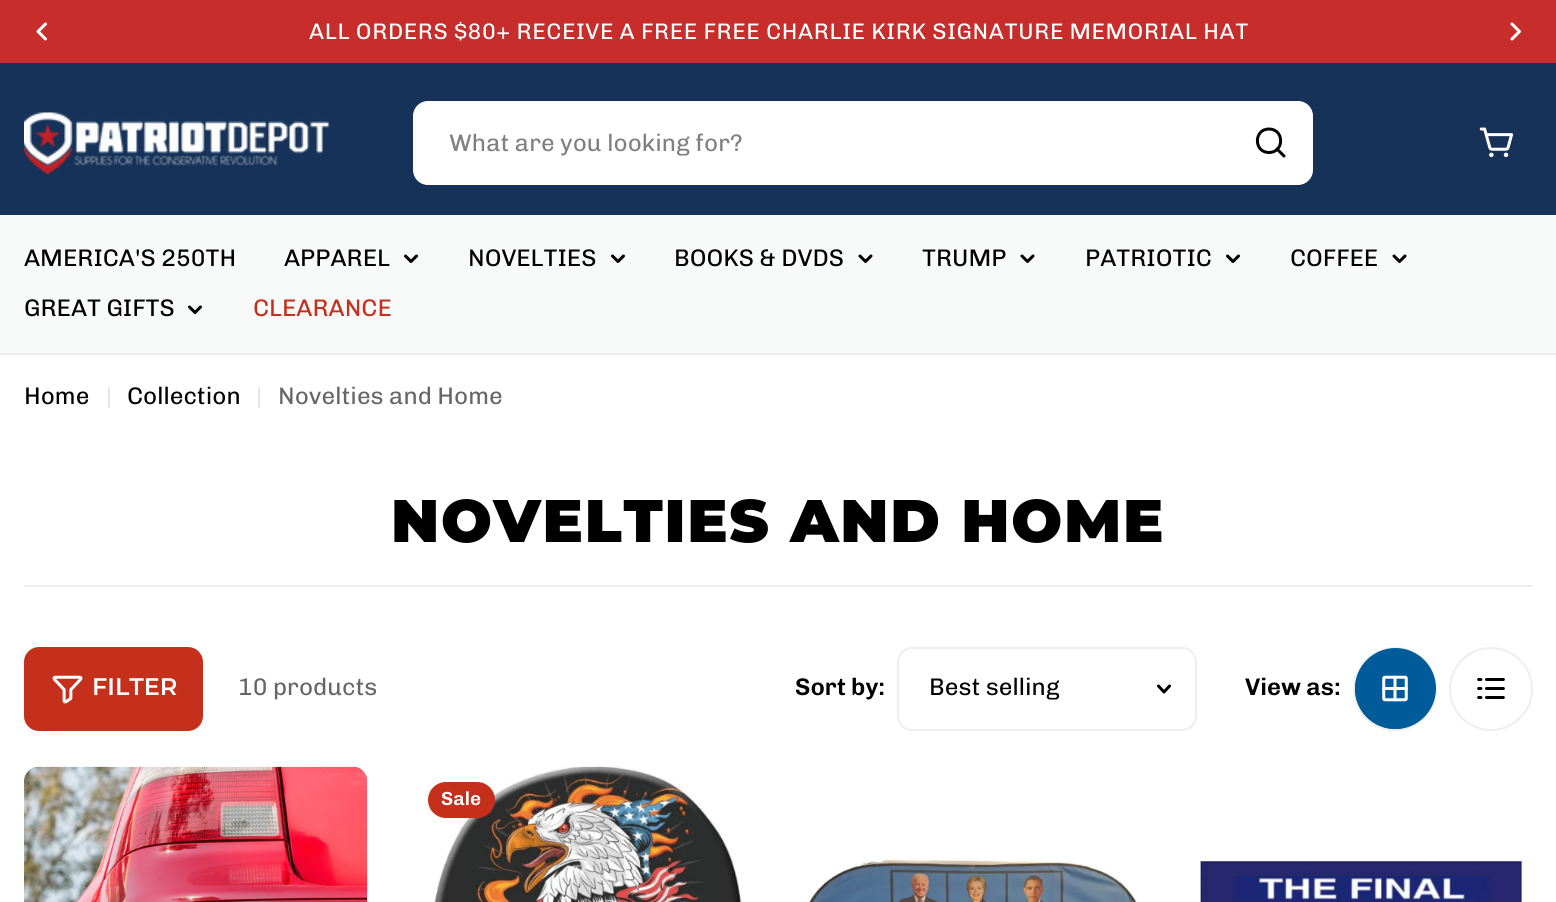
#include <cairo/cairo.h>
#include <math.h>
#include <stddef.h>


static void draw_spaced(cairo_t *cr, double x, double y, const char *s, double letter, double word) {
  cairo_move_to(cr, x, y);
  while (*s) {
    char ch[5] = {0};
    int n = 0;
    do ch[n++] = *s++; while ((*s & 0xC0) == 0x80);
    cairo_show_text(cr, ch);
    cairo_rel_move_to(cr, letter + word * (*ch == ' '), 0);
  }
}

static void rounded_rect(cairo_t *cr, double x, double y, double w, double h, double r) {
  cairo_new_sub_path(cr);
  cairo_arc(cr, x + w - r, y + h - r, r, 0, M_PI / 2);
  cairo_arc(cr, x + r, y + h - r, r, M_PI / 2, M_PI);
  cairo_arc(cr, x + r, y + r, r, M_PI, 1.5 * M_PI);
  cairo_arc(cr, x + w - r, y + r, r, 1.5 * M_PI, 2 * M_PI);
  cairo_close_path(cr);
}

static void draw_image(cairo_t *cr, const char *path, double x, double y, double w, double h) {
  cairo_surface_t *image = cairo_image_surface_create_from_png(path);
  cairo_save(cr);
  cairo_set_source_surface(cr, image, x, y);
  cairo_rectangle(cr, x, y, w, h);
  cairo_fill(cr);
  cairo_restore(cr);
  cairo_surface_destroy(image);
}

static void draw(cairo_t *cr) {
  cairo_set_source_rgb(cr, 1, 1, 1);
  cairo_paint(cr);
  cairo_set_source_rgb(cr, 198 / 255.0, 45 / 255.0, 43 / 255.0);
  cairo_rectangle(cr, 0, 0, 1556, 63);
  cairo_fill(cr);
  cairo_new_path(cr);
  cairo_move_to(cr, 45.5, 39);
  cairo_line_to(cr, 38, 31.5);
  cairo_line_to(cr, 45.5, 24);
  cairo_set_source_rgb(cr, 1, 1, 1);
  cairo_set_line_width(cr, 3);
  cairo_set_line_cap(cr, CAIRO_LINE_CAP_ROUND);
  cairo_set_line_join(cr, CAIRO_LINE_JOIN_ROUND);
  cairo_stroke(cr);
  cairo_new_path(cr);
  cairo_move_to(cr, 1512, 24);
  cairo_line_to(cr, 1519.5, 31.5);
  cairo_line_to(cr, 1512, 39);
  cairo_stroke(cr);
  cairo_set_source_rgb(cr, 22 / 255.0, 50 / 255.0, 88 / 255.0);
  cairo_rectangle(cr, 0, 63, 1556, 152);
  cairo_fill(cr);
  draw_image(cr, "images/1.png", 24, 112, 306, 62);
  cairo_set_source_rgb(cr, 1, 1, 1);
  rounded_rect(cr, 413, 101, 900, 84, 15);
  cairo_fill(cr);
  cairo_new_path(cr);
  cairo_move_to(cr, 1269, 152.5);
  cairo_curve_to(cr, 1284.5, 152.5, 1284.5, 129, 1269, 129);
  cairo_curve_to(cr, 1253.5, 129, 1253.5, 152.5, 1269, 152.5);
  cairo_close_path(cr);
  cairo_move_to(cr, 1277, 149);
  cairo_line_to(cr, 1284, 156);
  cairo_set_source_rgb(cr, 0, 0, 0);
  cairo_stroke(cr);
  draw_image(cr, "images/2.png", 1479, 127, 35, 31);
  cairo_set_source_rgb(cr, 248 / 255.0, 249 / 255.0, 249 / 255.0);
  cairo_rectangle(cr, 0, 215, 1556, 138);
  cairo_fill(cr);
  cairo_new_path(cr);
  cairo_move_to(cr, 416.5, 256);
  cairo_line_to(cr, 411, 261.5);
  cairo_line_to(cr, 405.5, 256);
  cairo_set_source_rgb(cr, 0, 0, 0);
  cairo_stroke(cr);
  cairo_new_path(cr);
  cairo_move_to(cr, 623.5, 256);
  cairo_line_to(cr, 618, 261.5);
  cairo_line_to(cr, 612.5, 256);
  cairo_stroke(cr);
  cairo_new_path(cr);
  cairo_move_to(cr, 871, 256);
  cairo_line_to(cr, 865.5, 261.5);
  cairo_line_to(cr, 860, 256);
  cairo_stroke(cr);
  cairo_new_path(cr);
  cairo_move_to(cr, 1033, 256);
  cairo_line_to(cr, 1027.5, 261.5);
  cairo_line_to(cr, 1022, 256);
  cairo_stroke(cr);
  cairo_new_path(cr);
  cairo_move_to(cr, 1238.5, 256);
  cairo_line_to(cr, 1233, 261.5);
  cairo_line_to(cr, 1227.5, 256);
  cairo_stroke(cr);
  cairo_new_path(cr);
  cairo_move_to(cr, 1405, 256);
  cairo_line_to(cr, 1399.5, 261.5);
  cairo_line_to(cr, 1394, 256);
  cairo_stroke(cr);
  cairo_new_path(cr);
  cairo_move_to(cr, 200.5, 307);
  cairo_line_to(cr, 195, 312.5);
  cairo_line_to(cr, 189.5, 307);
  cairo_stroke(cr);
  cairo_set_source_rgb(cr, 238 / 255.0, 238 / 255.0, 238 / 255.0);
  cairo_rectangle(cr, 0, 353, 1556, 2);
  cairo_fill(cr);
  cairo_set_source_rgb(cr, 230 / 255.0, 230 / 255.0, 230 / 255.0);
  cairo_rectangle(cr, 108, 387, 2, 21);
  cairo_fill(cr);
  cairo_rectangle(cr, 258, 387, 2, 21);
  cairo_fill(cr);
  cairo_set_source_rgb(cr, 238 / 255.0, 238 / 255.0, 238 / 255.0);
  cairo_rectangle(cr, 24, 585, 1509, 2);
  cairo_fill(cr);
  cairo_set_source_rgb(cr, 196 / 255.0, 48 / 255.0, 28 / 255.0);
  rounded_rect(cr, 25, 648, 177, 82, 14);
  cairo_fill_preserve(cr);
  cairo_set_line_width(cr, 2);
  cairo_set_line_cap(cr, CAIRO_LINE_CAP_BUTT);
  cairo_set_line_join(cr, CAIRO_LINE_JOIN_MITER);
  cairo_stroke(cr);
  draw_image(cr, "images/3.png", 52, 675, 31, 29);
  rounded_rect(cr, 898, 648, 298, 82, 14);
  cairo_set_source_rgb(cr, 238 / 255.0, 238 / 255.0, 238 / 255.0);
  cairo_stroke(cr);
  cairo_new_path(cr);
  cairo_move_to(cr, 1169.5, 686);
  cairo_line_to(cr, 1164, 692);
  cairo_line_to(cr, 1158.5, 686);
  cairo_set_source_rgb(cr, 0, 0, 0);
  cairo_set_line_width(cr, 3);
  cairo_set_line_cap(cr, CAIRO_LINE_CAP_ROUND);
  cairo_set_line_join(cr, CAIRO_LINE_JOIN_ROUND);
  cairo_stroke(cr);
  cairo_set_source_rgb(cr, 0, 91 / 255.0, 154 / 255.0);
  cairo_arc(cr, 1395, 689, 41, 0, 2 * M_PI);
  cairo_fill_preserve(cr);
  cairo_set_source_rgb(cr, 238 / 255.0, 238 / 255.0, 238 / 255.0);
  cairo_set_line_width(cr, 2);
  cairo_set_line_cap(cr, CAIRO_LINE_CAP_BUTT);
  cairo_set_line_join(cr, CAIRO_LINE_JOIN_MITER);
  cairo_stroke(cr);
  cairo_save(cr);
  rounded_rect(cr, 1355, 648, 81, 81, 40.5);
  cairo_clip(cr);
  cairo_set_source_rgb(cr, 0, 91 / 255.0, 154 / 255.0);
  rounded_rect(cr, 1353, 647, 83, 84, 41.5);
  cairo_fill(cr);
  cairo_restore(cr);
  draw_image(cr, "images/4.png", 1382, 675, 26, 27);
  cairo_arc(cr, 1491, 689, 41, 0, 2 * M_PI);
  cairo_stroke(cr);
  draw_image(cr, "images/5.png", 1477, 678, 28, 21);
  draw_image(cr, "images/6.png", 24, 766, 344, 136);
  draw_image(cr, "images/7.png", 434, 766, 310, 136);
  cairo_set_source_rgb(cr, 196 / 255.0, 48 / 255.0, 28 / 255.0);
  rounded_rect(cr, 428, 782, 67, 36, 18);
  cairo_fill(cr);
  draw_image(cr, "images/8.png", 808, 859, 329, 43);
  draw_image(cr, "images/9.png", 1200, 858, 325, 44);
  cairo_select_font_face(cr, "Chivo", CAIRO_FONT_SLANT_NORMAL, CAIRO_FONT_WEIGHT_NORMAL);
  cairo_set_font_size(cr, 22.5);
  cairo_set_source_rgb(cr, 1, 1, 1);
  draw_spaced(cr, 309, 39, "ALL ORDERS $80+ RECEIVE A FREE FREE CHARLIE KIRK SIGNATURE MEMORIAL HAT", 0.6, 0);
  cairo_set_font_size(cr, 24);
  cairo_set_source_rgb(cr, 128 / 255.0, 128 / 255.0, 128 / 255.0);
  cairo_move_to(cr, 449, 151);
  cairo_show_text(cr, "What are you looking for?");
  cairo_set_source_rgb(cr, 0, 0, 0);
  cairo_move_to(cr, 24, 266);
  cairo_show_text(cr, "AMERICA'S 250TH");
  cairo_move_to(cr, 284, 266);
  cairo_show_text(cr, "APPAREL");
  cairo_move_to(cr, 468, 266);
  cairo_show_text(cr, "NOVELTIES");
  cairo_move_to(cr, 674, 266);
  cairo_show_text(cr, "BOOKS & DVDS");
  cairo_move_to(cr, 922, 266);
  cairo_show_text(cr, "TRUMP");
  cairo_move_to(cr, 1085, 266);
  cairo_show_text(cr, "PATRIOTIC");
  cairo_move_to(cr, 1290, 266);
  cairo_show_text(cr, "COFFEE");
  cairo_move_to(cr, 24, 316);
  cairo_show_text(cr, "GREAT GIFTS");
  cairo_set_source_rgb(cr, 196 / 255.0, 48 / 255.0, 28 / 255.0);
  cairo_move_to(cr, 253, 316);
  cairo_show_text(cr, "CLEARANCE");
  cairo_set_source_rgb(cr, 0, 0, 0);
  cairo_move_to(cr, 24, 404);
  cairo_show_text(cr, "Home");
  cairo_move_to(cr, 127, 404);
  cairo_show_text(cr, "Collection");
  cairo_set_source_rgb(cr, 102 / 255.0, 102 / 255.0, 102 / 255.0);
  cairo_move_to(cr, 278, 404);
  cairo_show_text(cr, "Novelties and Home");
  cairo_select_font_face(cr, "Montserrat Black", CAIRO_FONT_SLANT_NORMAL, CAIRO_FONT_WEIGHT_NORMAL);
  cairo_set_font_size(cr, 60);
  cairo_set_source_rgb(cr, 0, 0, 0);
  draw_spaced(cr, 391, 542, "NOVELTIES AND HOME", 1.75, 0);
  cairo_select_font_face(cr, "Montserrat SemiBold", CAIRO_FONT_SLANT_NORMAL, CAIRO_FONT_WEIGHT_NORMAL);
  cairo_set_font_size(cr, 24);
  cairo_set_source_rgb(cr, 1, 1, 1);
  cairo_move_to(cr, 92, 695);
  cairo_show_text(cr, "FILTER");
  cairo_select_font_face(cr, "Chivo", CAIRO_FONT_SLANT_NORMAL, CAIRO_FONT_WEIGHT_NORMAL);
  cairo_set_source_rgb(cr, 102 / 255.0, 102 / 255.0, 102 / 255.0);
  cairo_move_to(cr, 238, 695);
  cairo_show_text(cr, "10 products");
  cairo_select_font_face(cr, "Chivo SemiBold", CAIRO_FONT_SLANT_NORMAL, CAIRO_FONT_WEIGHT_NORMAL);
  cairo_set_source_rgb(cr, 0, 0, 0);
  cairo_move_to(cr, 795, 695);
  cairo_show_text(cr, "Sort by:");
  cairo_select_font_face(cr, "Chivo", CAIRO_FONT_SLANT_NORMAL, CAIRO_FONT_WEIGHT_NORMAL);
  cairo_move_to(cr, 929, 695);
  cairo_show_text(cr, "Best selling");
  cairo_select_font_face(cr, "Chivo SemiBold", CAIRO_FONT_SLANT_NORMAL, CAIRO_FONT_WEIGHT_NORMAL);
  cairo_move_to(cr, 1245, 695);
  cairo_show_text(cr, "View as:");
  cairo_set_font_size(cr, 19);
  cairo_set_source_rgb(cr, 1, 1, 1);
  cairo_move_to(cr, 441, 805);
  cairo_show_text(cr, "Sale");
}

int main(void) {
  cairo_surface_t *surface = cairo_image_surface_create(CAIRO_FORMAT_RGB24, 1556, 902);
  cairo_t *cr = cairo_create(surface);
  cairo_font_options_t *options = cairo_font_options_create();
  cairo_font_options_set_hint_metrics(options, CAIRO_HINT_METRICS_OFF);
  cairo_font_options_set_hint_style(options, CAIRO_HINT_STYLE_NONE);
  cairo_set_font_options(cr, options);
  cairo_set_miter_limit(cr, 4);
  draw(cr);
  cairo_surface_write_to_png(surface, "out.png");
  cairo_font_options_destroy(options);
  cairo_destroy(cr);
  cairo_surface_destroy(surface);
  return 0;
}
